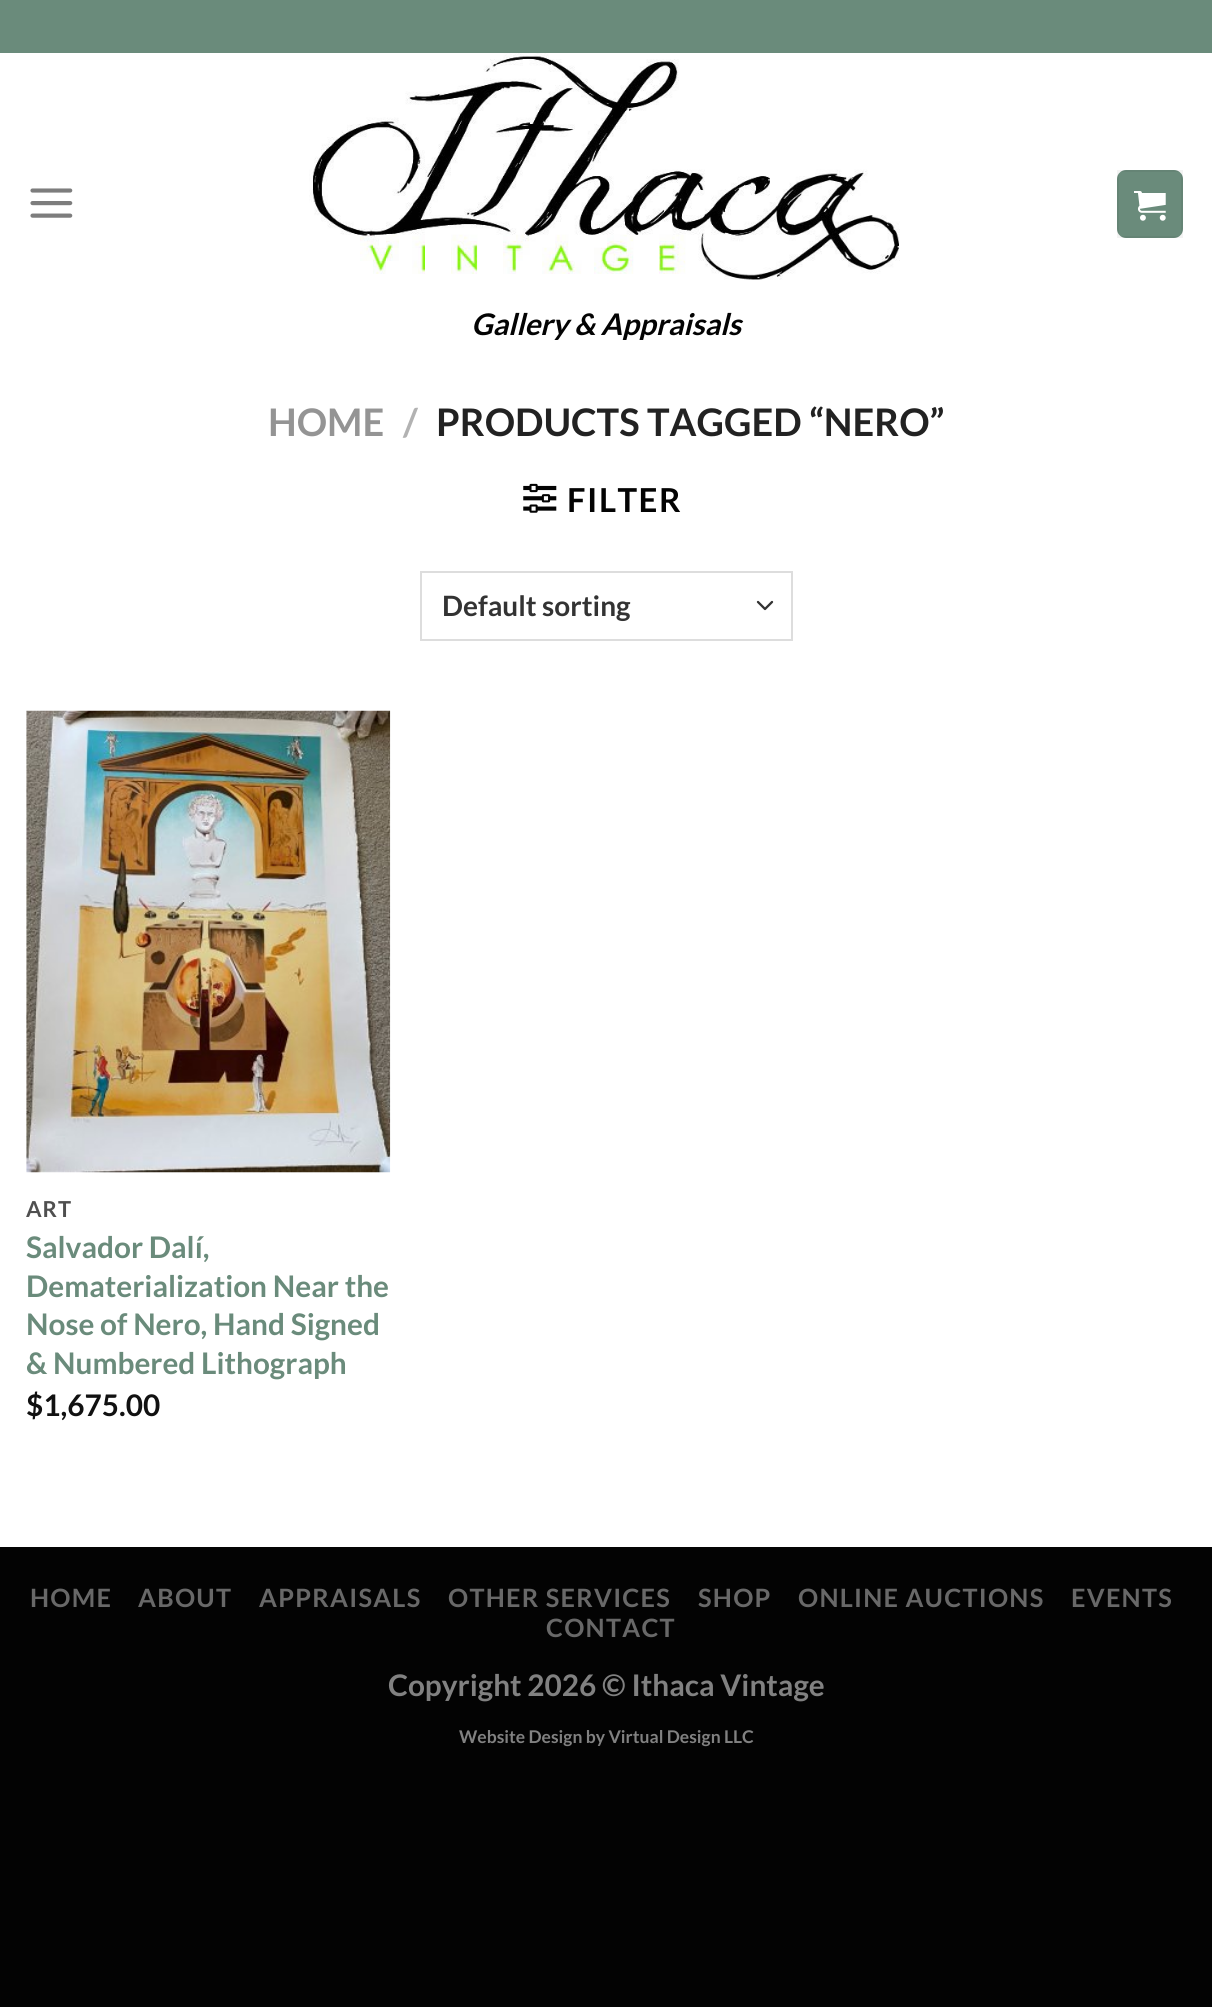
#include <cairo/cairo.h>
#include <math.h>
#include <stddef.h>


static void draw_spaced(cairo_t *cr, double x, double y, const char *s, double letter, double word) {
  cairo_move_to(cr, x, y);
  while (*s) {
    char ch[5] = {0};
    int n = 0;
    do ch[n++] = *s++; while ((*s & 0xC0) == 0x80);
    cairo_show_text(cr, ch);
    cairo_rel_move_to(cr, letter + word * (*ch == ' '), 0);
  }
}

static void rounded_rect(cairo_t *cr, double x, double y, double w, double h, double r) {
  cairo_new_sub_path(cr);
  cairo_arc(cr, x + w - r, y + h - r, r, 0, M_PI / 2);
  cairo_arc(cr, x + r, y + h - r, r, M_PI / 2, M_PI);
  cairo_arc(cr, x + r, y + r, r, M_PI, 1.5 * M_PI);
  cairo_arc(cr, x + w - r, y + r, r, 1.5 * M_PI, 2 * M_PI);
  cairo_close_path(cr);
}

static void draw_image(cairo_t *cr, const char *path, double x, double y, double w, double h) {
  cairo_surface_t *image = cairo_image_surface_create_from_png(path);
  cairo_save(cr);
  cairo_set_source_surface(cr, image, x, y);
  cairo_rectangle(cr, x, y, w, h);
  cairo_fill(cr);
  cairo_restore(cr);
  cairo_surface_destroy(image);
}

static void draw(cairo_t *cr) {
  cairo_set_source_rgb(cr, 3 / 255.0, 3 / 255.0, 3 / 255.0);
  cairo_paint(cr);
  cairo_set_source_rgb(cr, 1, 1, 1);
  cairo_rectangle(cr, 0, 53, 1212, 1494);
  cairo_fill(cr);
  cairo_set_source_rgb(cr, 106 / 255.0, 139 / 255.0, 123 / 255.0);
  cairo_rectangle(cr, 0, 0, 1212, 53);
  cairo_fill(cr);
  draw_image(cr, "images/1.png", 30, 188, 43, 30);
  rounded_rect(cr, 1117, 170, 66, 68, 9);
  cairo_fill(cr);
  cairo_rectangle(cr, 1118, 171, 64, 66);
  cairo_set_source_rgba(cr, 0, 0, 0, 0.05);
  cairo_stroke(cr);
  draw_image(cr, "images/2.png", 1134, 191, 32, 30);
  draw_image(cr, "images/3.png", 309, 53, 591, 227);
  draw_image(cr, "images/4.png", 523, 483, 34, 30);
  cairo_new_path(cr);
  cairo_move_to(cr, 758, 602);
  cairo_line_to(cr, 765, 609);
  cairo_line_to(cr, 772, 602);
  cairo_set_source_rgb(cr, 51 / 255.0, 51 / 255.0, 51 / 255.0);
  cairo_set_line_width(cr, 2.3);
  cairo_set_line_cap(cr, CAIRO_LINE_CAP_ROUND);
  cairo_set_line_join(cr, CAIRO_LINE_JOIN_ROUND);
  cairo_stroke(cr);
  cairo_rectangle(cr, 421, 572, 371, 68);
  cairo_set_source_rgb(cr, 221 / 255.0, 221 / 255.0, 221 / 255.0);
  cairo_set_line_width(cr, 2);
  cairo_set_line_cap(cr, CAIRO_LINE_CAP_BUTT);
  cairo_set_line_join(cr, CAIRO_LINE_JOIN_MITER);
  cairo_stroke(cr);
  draw_image(cr, "images/5.png", 26, 710, 365, 463);
  cairo_select_font_face(cr, "Lato", CAIRO_FONT_SLANT_ITALIC, CAIRO_FONT_WEIGHT_BOLD);
  cairo_set_font_size(cr, 29.75);
  cairo_set_source_rgb(cr, 3 / 255.0, 3 / 255.0, 3 / 255.0);
  cairo_move_to(cr, 471, 335);
  cairo_show_text(cr, "Gallery & Appraisals");
  cairo_select_font_face(cr, "Lato", CAIRO_FONT_SLANT_NORMAL, CAIRO_FONT_WEIGHT_BOLD);
  cairo_set_font_size(cr, 38);
  cairo_set_source_rgb(cr, 148 / 255.0, 148 / 255.0, 148 / 255.0);
  cairo_move_to(cr, 268, 436);
  cairo_show_text(cr, "HOME");
  cairo_set_source_rgb(cr, 178 / 255.0, 178 / 255.0, 178 / 255.0);
  cairo_move_to(cr, 403, 436);
  cairo_show_text(cr, "/");
  cairo_set_source_rgb(cr, 34 / 255.0, 34 / 255.0, 34 / 255.0);
  cairo_move_to(cr, 436, 436);
  cairo_show_text(cr, "PRODUCTS TAGGED “NERO”");
  cairo_set_font_size(cr, 33);
  cairo_set_source_rgb(cr, 3 / 255.0, 3 / 255.0, 3 / 255.0);
  draw_spaced(cr, 567, 512, "FILTER", 1.5, 0);
  cairo_set_font_size(cr, 28);
  cairo_set_source_rgb(cr, 51 / 255.0, 51 / 255.0, 51 / 255.0);
  cairo_move_to(cr, 442, 616);
  cairo_show_text(cr, "Default sorting");
  cairo_set_font_size(cr, 22);
  cairo_set_source_rgb(cr, 79 / 255.0, 79 / 255.0, 79 / 255.0);
  draw_spaced(cr, 26, 1217, "ART", 1, 0);
  cairo_set_font_size(cr, 29.75);
  cairo_set_source_rgb(cr, 106 / 255.0, 139 / 255.0, 123 / 255.0);
  cairo_move_to(cr, 26, 1258);
  cairo_show_text(cr, "Salvador Dalí,");
  cairo_move_to(cr, 26, 1297);
  cairo_show_text(cr, "Dematerialization Near the");
  cairo_move_to(cr, 26, 1335);
  cairo_show_text(cr, "Nose of Nero, Hand Signed");
  cairo_move_to(cr, 26, 1374);
  cairo_show_text(cr, "& Numbered Lithograph");
  cairo_set_source_rgb(cr, 17 / 255.0, 17 / 255.0, 17 / 255.0);
  cairo_move_to(cr, 26, 1416);
  cairo_show_text(cr, "$1,675.00");
  cairo_set_font_size(cr, 25.25);
  cairo_set_source_rgb(cr, 104 / 255.0, 104 / 255.0, 104 / 255.0);
  draw_spaced(cr, 30, 1607, "HOME", 1.25, 0);
  draw_spaced(cr, 138, 1607, "ABOUT", 1.25, 0);
  draw_spaced(cr, 259, 1607, "APPRAISALS", 1.25, 0);
  draw_spaced(cr, 448, 1607, "OTHER SERVICES", 1.25, 0);
  draw_spaced(cr, 698, 1607, "SHOP", 1.25, 0);
  draw_spaced(cr, 798, 1607, "ONLINE AUCTIONS", 1.25, 0);
  draw_spaced(cr, 1071, 1607, "EVENTS", 1.25, 0);
  draw_spaced(cr, 546, 1637, "CONTACT", 1.25, 0);
  cairo_set_font_size(cr, 29.75);
  cairo_set_source_rgb(cr, 129 / 255.0, 129 / 255.0, 129 / 255.0);
  cairo_move_to(cr, 388, 1696);
  cairo_show_text(cr, "Copyright 2026 © Ithaca Vintage");
  cairo_set_font_size(cr, 17.5);
  cairo_move_to(cr, 459, 1743);
  cairo_show_text(cr, "Website Design by Virtual Design LLC");
}

int main(void) {
  cairo_surface_t *surface = cairo_image_surface_create(CAIRO_FORMAT_RGB24, 1212, 2007);
  cairo_t *cr = cairo_create(surface);
  cairo_font_options_t *options = cairo_font_options_create();
  cairo_font_options_set_hint_metrics(options, CAIRO_HINT_METRICS_OFF);
  cairo_font_options_set_hint_style(options, CAIRO_HINT_STYLE_NONE);
  cairo_set_font_options(cr, options);
  cairo_set_miter_limit(cr, 4);
  draw(cr);
  cairo_surface_write_to_png(surface, "out.png");
  cairo_font_options_destroy(options);
  cairo_destroy(cr);
  cairo_surface_destroy(surface);
  return 0;
}
